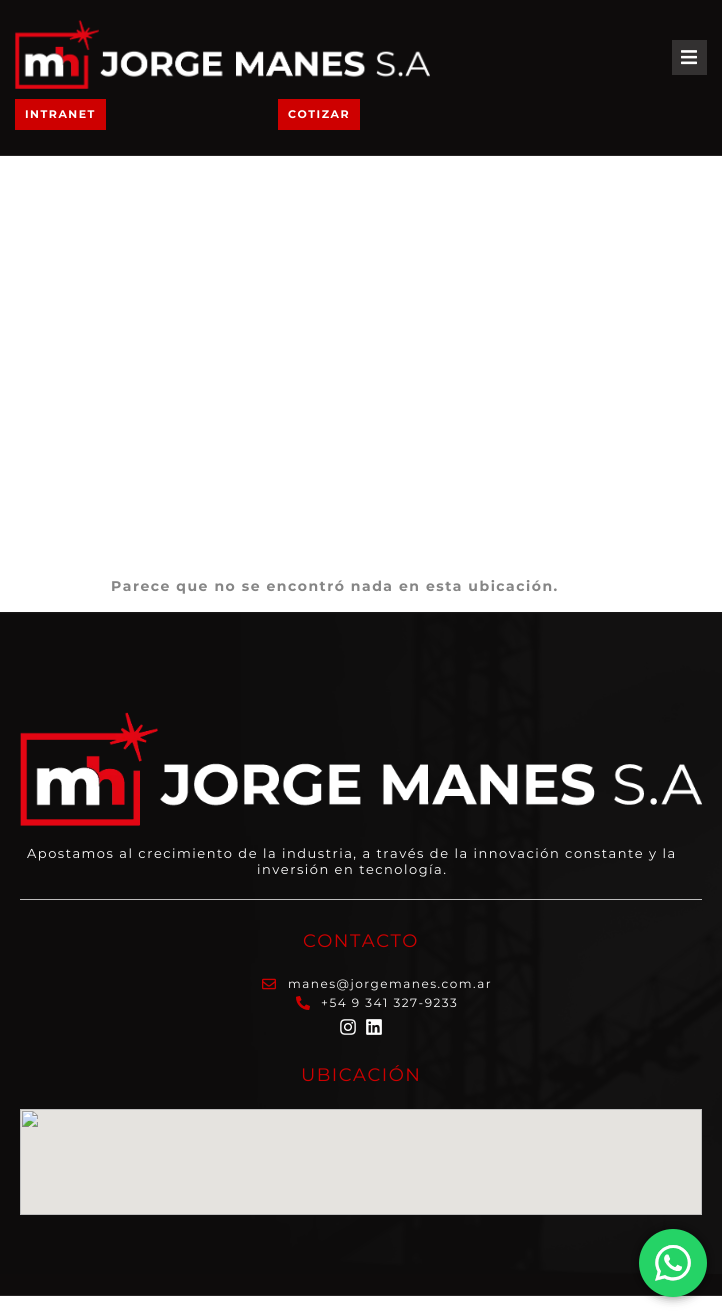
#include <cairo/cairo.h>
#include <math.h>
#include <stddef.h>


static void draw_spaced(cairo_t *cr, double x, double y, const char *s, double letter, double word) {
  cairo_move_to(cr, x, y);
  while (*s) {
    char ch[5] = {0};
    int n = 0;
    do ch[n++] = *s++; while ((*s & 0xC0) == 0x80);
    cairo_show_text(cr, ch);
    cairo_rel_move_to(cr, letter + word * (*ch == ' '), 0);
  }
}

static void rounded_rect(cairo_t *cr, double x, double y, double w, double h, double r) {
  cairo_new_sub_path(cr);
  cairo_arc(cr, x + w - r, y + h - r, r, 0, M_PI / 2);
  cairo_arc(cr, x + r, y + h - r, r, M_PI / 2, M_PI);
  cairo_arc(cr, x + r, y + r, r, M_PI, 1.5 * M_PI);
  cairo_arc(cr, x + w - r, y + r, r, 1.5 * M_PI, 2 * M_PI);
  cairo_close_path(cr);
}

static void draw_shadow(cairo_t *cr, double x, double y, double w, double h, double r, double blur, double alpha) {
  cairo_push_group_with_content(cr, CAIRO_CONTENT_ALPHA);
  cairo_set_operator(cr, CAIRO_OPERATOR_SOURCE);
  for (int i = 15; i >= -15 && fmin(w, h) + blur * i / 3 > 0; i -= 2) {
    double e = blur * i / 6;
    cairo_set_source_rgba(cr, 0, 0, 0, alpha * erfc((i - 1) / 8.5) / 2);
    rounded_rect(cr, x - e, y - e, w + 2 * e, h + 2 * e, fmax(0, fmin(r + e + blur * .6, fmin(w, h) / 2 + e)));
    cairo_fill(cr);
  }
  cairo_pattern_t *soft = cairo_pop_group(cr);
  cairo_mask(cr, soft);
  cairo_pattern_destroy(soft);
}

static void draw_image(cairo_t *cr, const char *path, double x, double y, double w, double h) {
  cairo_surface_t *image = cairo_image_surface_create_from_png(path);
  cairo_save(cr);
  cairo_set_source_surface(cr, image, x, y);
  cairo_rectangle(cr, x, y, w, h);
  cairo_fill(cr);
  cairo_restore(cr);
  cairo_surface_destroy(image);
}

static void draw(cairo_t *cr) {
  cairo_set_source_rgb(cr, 1, 1, 1);
  cairo_paint(cr);
  cairo_set_source_rgb(cr, 14 / 255.0, 12 / 255.0, 12 / 255.0);
  cairo_rectangle(cr, 0, 0, 722, 155);
  cairo_fill(cr);
  cairo_set_source_rgb(cr, 38 / 255.0, 36 / 255.0, 36 / 255.0);
  cairo_rectangle(cr, 0, 155, 722, 1);
  cairo_fill(cr);
  draw_image(cr, "images/1.png", 15, 20, 415, 69);
  cairo_set_source_rgb(cr, 51 / 255.0, 49 / 255.0, 49 / 255.0);
  cairo_rectangle(cr, 672, 40, 35, 35);
  cairo_fill(cr);
  draw_image(cr, "images/2.png", 681, 50, 16, 15);
  cairo_set_source_rgb(cr, 206 / 255.0, 0, 0);
  cairo_rectangle(cr, 15, 99, 91, 31);
  cairo_fill(cr);
  cairo_rectangle(cr, 278, 99, 82, 31);
  cairo_fill(cr);
  cairo_set_source_rgb(cr, 14 / 255.0, 12 / 255.0, 12 / 255.0);
  cairo_rectangle(cr, 0, 612, 722, 683);
  cairo_fill(cr);
  cairo_set_source_rgb(cr, 38 / 255.0, 36 / 255.0, 36 / 255.0);
  cairo_rectangle(cr, 0, 1295, 722, 1);
  cairo_fill(cr);
  draw_image(cr, "images/3.png", 0, 612, 722, 662);
  draw_image(cr, "images/4.png", 20, 712, 682, 114);
  cairo_set_source_rgb(cr, 189 / 255.0, 189 / 255.0, 189 / 255.0);
  cairo_rectangle(cr, 20, 899, 682, 1);
  cairo_fill(cr);
  draw_image(cr, "images/5.png", 262, 978, 14, 12);
  draw_image(cr, "images/6.png", 296, 996, 14, 14);
  draw_image(cr, "images/7.png", 340, 1019, 16, 16);
  draw_image(cr, "images/8.png", 366, 1019, 16, 16);
  draw_image(cr, "images/9.png", 20, 1109, 682, 106);
  cairo_set_source_rgb(cr, 0, 0, 0);
  draw_shadow(cr, 639, 1229, 68, 68, 34, 5.5, 0.5);
  cairo_set_source_rgb(cr, 37 / 255.0, 211 / 255.0, 102 / 255.0);
  cairo_arc(cr, 673, 1263, 34, 0, 2 * M_PI);
  cairo_fill(cr);
  draw_image(cr, "images/10.png", 655, 1245, 36, 36);
  cairo_select_font_face(cr, "Montserrat", CAIRO_FONT_SLANT_NORMAL, CAIRO_FONT_WEIGHT_BOLD);
  cairo_set_font_size(cr, 11);
  cairo_set_source_rgb(cr, 1, 1, 1);
  draw_spaced(cr, 25, 118, "INTRANET", 1.5, 0);
  draw_spaced(cr, 288, 118, "COTIZAR", 1.5, 0);
  cairo_set_font_size(cr, 14);
  cairo_set_source_rgb(cr, 134 / 255.0, 134 / 255.0, 134 / 255.0);
  draw_spaced(cr, 111, 591, "Parece que no se encontró nada en esta ubicación.", 1.5, 0);
  cairo_select_font_face(cr, "Montserrat", CAIRO_FONT_SLANT_NORMAL, CAIRO_FONT_WEIGHT_NORMAL);
  cairo_set_font_size(cr, 13);
  cairo_set_source_rgb(cr, 1, 1, 1);
  draw_spaced(cr, 27, 858, "Apostamos al crecimiento de la industria, a través de la innovación constante y la", 1.5, 0);
  draw_spaced(cr, 257, 874, "inversión en tecnología.", 1.5, 0);
  cairo_set_font_size(cr, 18);
  cairo_set_source_rgb(cr, 206 / 255.0, 0, 0);
  draw_spaced(cr, 303, 947, "CONTACTO", 1.5, 0);
  cairo_set_font_size(cr, 12);
  cairo_set_source_rgb(cr, 1, 1, 1);
  draw_spaced(cr, 288, 988, "manes@jorgemanes.com.ar", 1.5, 0);
  draw_spaced(cr, 321, 1007, "+54 9 341 327-9233", 1.5, 0);
  cairo_set_font_size(cr, 18);
  cairo_set_source_rgb(cr, 206 / 255.0, 0, 0);
  draw_spaced(cr, 301, 1081, "UBICACIÓN", 1.5, 0);
}

int main(void) {
  cairo_surface_t *surface = cairo_image_surface_create(CAIRO_FORMAT_RGB24, 722, 1312);
  cairo_t *cr = cairo_create(surface);
  cairo_font_options_t *options = cairo_font_options_create();
  cairo_font_options_set_hint_metrics(options, CAIRO_HINT_METRICS_OFF);
  cairo_font_options_set_hint_style(options, CAIRO_HINT_STYLE_NONE);
  cairo_set_font_options(cr, options);
  cairo_set_miter_limit(cr, 4);
  draw(cr);
  cairo_surface_write_to_png(surface, "out.png");
  cairo_font_options_destroy(options);
  cairo_destroy(cr);
  cairo_surface_destroy(surface);
  return 0;
}
